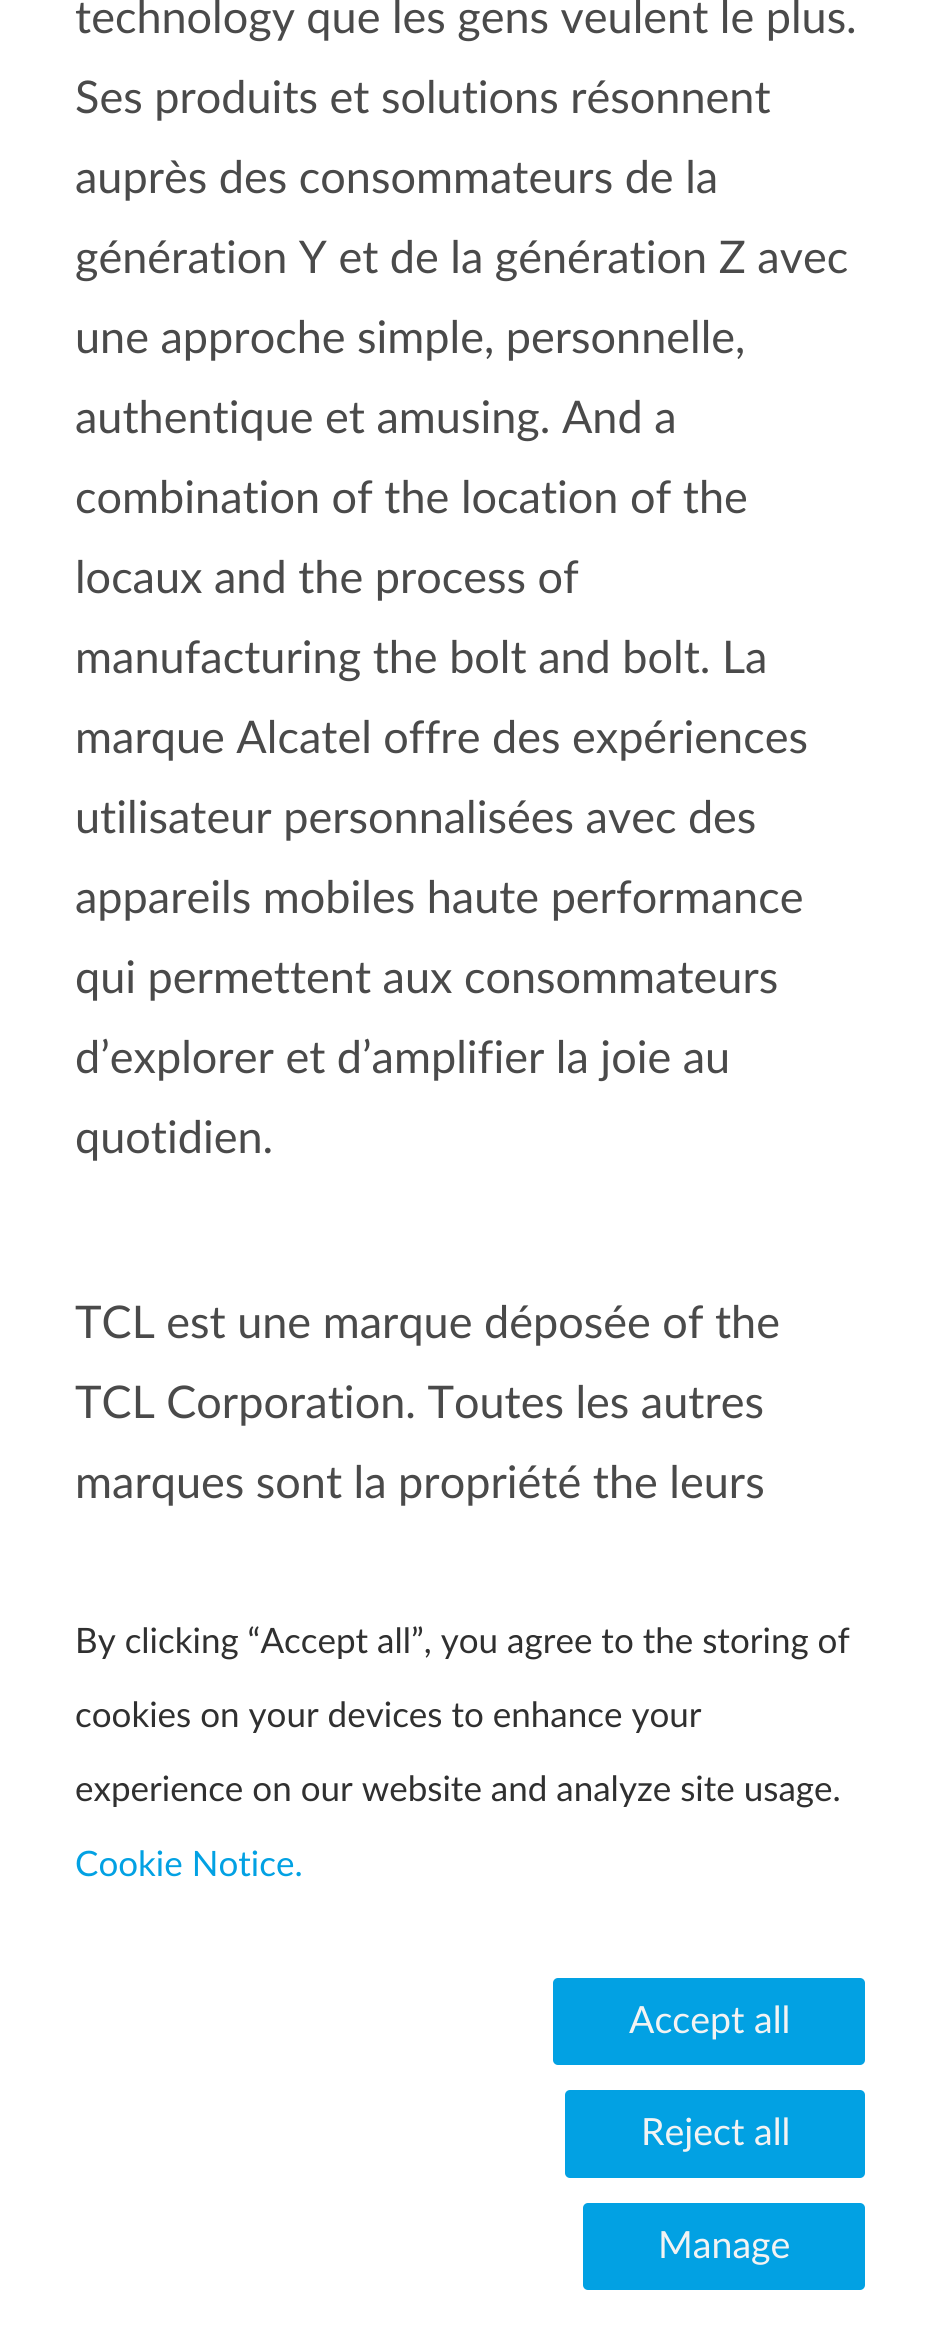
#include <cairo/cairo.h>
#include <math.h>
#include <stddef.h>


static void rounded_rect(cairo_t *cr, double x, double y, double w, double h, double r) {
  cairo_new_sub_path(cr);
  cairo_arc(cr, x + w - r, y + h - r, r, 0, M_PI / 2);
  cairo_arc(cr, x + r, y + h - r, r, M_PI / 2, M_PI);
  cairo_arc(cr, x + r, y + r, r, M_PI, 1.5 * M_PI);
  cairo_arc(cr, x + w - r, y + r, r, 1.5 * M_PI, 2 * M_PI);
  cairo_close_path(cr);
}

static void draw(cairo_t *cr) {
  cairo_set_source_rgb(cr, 1, 1, 1);
  cairo_paint(cr);
  cairo_set_source_rgb(cr, 2 / 255.0, 161 / 255.0, 227 / 255.0);
  rounded_rect(cr, 553, 1978, 312, 87, 5);
  cairo_fill(cr);
  rounded_rect(cr, 565, 2090, 300, 88, 5);
  cairo_fill(cr);
  rounded_rect(cr, 583, 2203, 282, 87, 5);
  cairo_fill(cr);
  cairo_select_font_face(cr, "Lato", CAIRO_FONT_SLANT_NORMAL, CAIRO_FONT_WEIGHT_NORMAL);
  cairo_set_font_size(cr, 45);
  cairo_set_source_rgb(cr, 74 / 255.0, 74 / 255.0, 74 / 255.0);
  cairo_move_to(cr, 75, 33);
  cairo_show_text(cr, "technology que les gens veulent le plus.");
  cairo_move_to(cr, 75, 113);
  cairo_show_text(cr, "Ses produits et solutions résonnent");
  cairo_move_to(cr, 75, 193);
  cairo_show_text(cr, "auprès des consommateurs de la");
  cairo_move_to(cr, 75, 273);
  cairo_show_text(cr, "génération Y et de la génération Z avec");
  cairo_move_to(cr, 75, 353);
  cairo_show_text(cr, "une approche simple, personnelle,");
  cairo_move_to(cr, 75, 433);
  cairo_show_text(cr, "authentique et amusing. And a");
  cairo_move_to(cr, 75, 513);
  cairo_show_text(cr, "combination of the location of the");
  cairo_move_to(cr, 75, 593);
  cairo_show_text(cr, "locaux and the process of");
  cairo_move_to(cr, 75, 673);
  cairo_show_text(cr, "manufacturing the bolt and bolt. La");
  cairo_move_to(cr, 75, 753);
  cairo_show_text(cr, "marque Alcatel offre des expériences");
  cairo_move_to(cr, 75, 833);
  cairo_show_text(cr, "utilisateur personnalisées avec des");
  cairo_move_to(cr, 75, 913);
  cairo_show_text(cr, "appareils mobiles haute performance");
  cairo_move_to(cr, 75, 993);
  cairo_show_text(cr, "qui permettent aux consommateurs");
  cairo_move_to(cr, 75, 1073);
  cairo_show_text(cr, "d’explorer et d’amplifier la joie au");
  cairo_move_to(cr, 75, 1153);
  cairo_show_text(cr, "quotidien.");
  cairo_move_to(cr, 75, 1338);
  cairo_show_text(cr, "TCL est une marque déposée of the");
  cairo_move_to(cr, 75, 1418);
  cairo_show_text(cr, "TCL Corporation. Toutes les autres");
  cairo_move_to(cr, 75, 1498);
  cairo_show_text(cr, "marques sont la propriété the leurs");
  cairo_set_font_size(cr, 35);
  cairo_set_source_rgb(cr, 48 / 255.0, 48 / 255.0, 48 / 255.0);
  cairo_move_to(cr, 75, 1653);
  cairo_show_text(cr, "By clicking “Accept all”, you agree to the storing of");
  cairo_move_to(cr, 75, 1727);
  cairo_show_text(cr, "cookies on your devices to enhance your");
  cairo_move_to(cr, 75, 1801);
  cairo_show_text(cr, "experience on our website and analyze site usage.");
  cairo_set_source_rgb(cr, 2 / 255.0, 161 / 255.0, 227 / 255.0);
  cairo_move_to(cr, 75, 1876);
  cairo_show_text(cr, "Cookie Notice.");
  cairo_set_font_size(cr, 37.5);
  cairo_set_source_rgb(cr, 243 / 255.0, 243 / 255.0, 243 / 255.0);
  cairo_move_to(cr, 629, 2033);
  cairo_show_text(cr, "Accept all");
  cairo_move_to(cr, 641, 2145);
  cairo_show_text(cr, "Reject all");
  cairo_move_to(cr, 658, 2258);
  cairo_show_text(cr, "Manage");
}

int main(void) {
  cairo_surface_t *surface = cairo_image_surface_create(CAIRO_FORMAT_RGB24, 939, 2326);
  cairo_t *cr = cairo_create(surface);
  cairo_font_options_t *options = cairo_font_options_create();
  cairo_font_options_set_hint_metrics(options, CAIRO_HINT_METRICS_OFF);
  cairo_font_options_set_hint_style(options, CAIRO_HINT_STYLE_NONE);
  cairo_set_font_options(cr, options);
  cairo_set_miter_limit(cr, 4);
  draw(cr);
  cairo_surface_write_to_png(surface, "out.png");
  cairo_font_options_destroy(options);
  cairo_destroy(cr);
  cairo_surface_destroy(surface);
  return 0;
}
